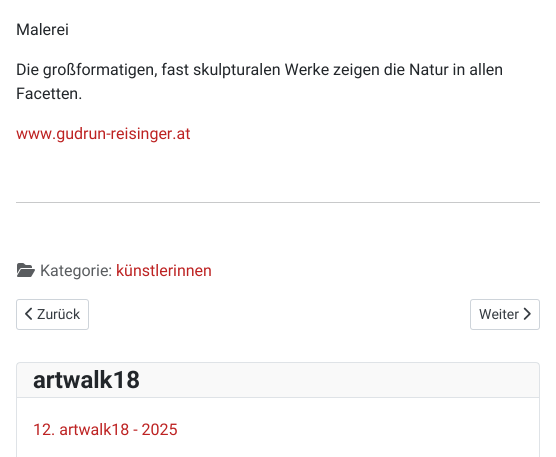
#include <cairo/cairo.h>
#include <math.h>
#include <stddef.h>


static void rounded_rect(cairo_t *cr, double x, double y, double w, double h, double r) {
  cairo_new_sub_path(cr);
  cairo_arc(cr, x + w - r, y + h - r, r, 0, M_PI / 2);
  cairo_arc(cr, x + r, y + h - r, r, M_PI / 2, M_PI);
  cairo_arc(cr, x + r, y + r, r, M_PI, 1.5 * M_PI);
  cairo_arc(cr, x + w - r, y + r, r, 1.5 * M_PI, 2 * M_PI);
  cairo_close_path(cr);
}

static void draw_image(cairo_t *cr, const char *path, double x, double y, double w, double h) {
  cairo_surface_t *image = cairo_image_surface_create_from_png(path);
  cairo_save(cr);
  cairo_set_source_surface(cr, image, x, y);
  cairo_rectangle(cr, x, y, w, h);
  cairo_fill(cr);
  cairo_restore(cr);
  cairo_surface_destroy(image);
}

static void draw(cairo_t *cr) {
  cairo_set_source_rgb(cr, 1, 1, 1);
  cairo_paint(cr);
  cairo_set_source_rgb(cr, 200 / 255.0, 201 / 255.0, 202 / 255.0);
  cairo_rectangle(cr, 16, 202, 524, 1);
  cairo_fill(cr);
  draw_image(cr, "images/1.png", 17, 263, 18, 14);
  rounded_rect(cr, 16.5, 299.5, 72, 30, 2.5);
  cairo_set_source_rgb(cr, 206 / 255.0, 212 / 255.0, 218 / 255.0);
  cairo_set_line_width(cr, 1);
  cairo_stroke(cr);
  draw_image(cr, "images/2.png", 25, 307, 7, 13);
  rounded_rect(cr, 470.5, 299.5, 69, 30, 2.5);
  cairo_stroke(cr);
  draw_image(cr, "images/3.png", 523, 307, 8, 13);
  rounded_rect(cr, 16.5, 362.5, 523, 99, 3.5);
  cairo_set_source_rgb(cr, 223 / 255.0, 227 / 255.0, 231 / 255.0);
  cairo_stroke(cr);
  cairo_set_source_rgba(cr, 34 / 255.0, 38 / 255.0, 42 / 255.0, 0.03);
  cairo_rectangle(cr, 17, 363, 522, 34);
  cairo_fill(cr);
  cairo_set_source_rgb(cr, 223 / 255.0, 227 / 255.0, 231 / 255.0);
  cairo_rectangle(cr, 17, 397, 522, 1);
  cairo_fill(cr);
  cairo_select_font_face(cr, "Roboto", CAIRO_FONT_SLANT_NORMAL, CAIRO_FONT_WEIGHT_NORMAL);
  cairo_set_font_size(cr, 16);
  cairo_set_source_rgb(cr, 34 / 255.0, 38 / 255.0, 42 / 255.0);
  cairo_move_to(cr, 16, 35);
  cairo_show_text(cr, "Malerei");
  cairo_move_to(cr, 16, 75);
  cairo_show_text(cr, "Die großformatigen, fast skulpturalen Werke zeigen die Natur in allen");
  cairo_move_to(cr, 16, 99);
  cairo_show_text(cr, "Facetten.");
  cairo_set_source_rgb(cr, 189 / 255.0, 34 / 255.0, 34 / 255.0);
  cairo_move_to(cr, 16, 139);
  cairo_show_text(cr, "www.gudrun-reisinger.at");
  cairo_set_source_rgb(cr, 89 / 255.0, 92 / 255.0, 95 / 255.0);
  cairo_move_to(cr, 40, 276);
  cairo_show_text(cr, "Kategorie:");
  cairo_set_source_rgb(cr, 189 / 255.0, 34 / 255.0, 34 / 255.0);
  cairo_move_to(cr, 116, 276);
  cairo_show_text(cr, "künstlerinnen");
  cairo_set_font_size(cr, 14);
  cairo_set_source_rgb(cr, 53 / 255.0, 59 / 255.0, 65 / 255.0);
  cairo_move_to(cr, 37, 319);
  cairo_show_text(cr, "Zurück");
  cairo_move_to(cr, 479, 319);
  cairo_show_text(cr, "Weiter");
  cairo_select_font_face(cr, "Roboto", CAIRO_FONT_SLANT_NORMAL, CAIRO_FONT_WEIGHT_BOLD);
  cairo_set_font_size(cr, 24);
  cairo_set_source_rgb(cr, 34 / 255.0, 38 / 255.0, 42 / 255.0);
  cairo_move_to(cr, 33, 388);
  cairo_show_text(cr, "artwalk18");
  cairo_select_font_face(cr, "Roboto", CAIRO_FONT_SLANT_NORMAL, CAIRO_FONT_WEIGHT_NORMAL);
  cairo_set_font_size(cr, 16);
  cairo_set_source_rgb(cr, 189 / 255.0, 34 / 255.0, 34 / 255.0);
  cairo_move_to(cr, 33, 435);
  cairo_show_text(cr, "12. artwalk18 - 2025");
}

int main(void) {
  cairo_surface_t *surface = cairo_image_surface_create(CAIRO_FORMAT_RGB24, 556, 457);
  cairo_t *cr = cairo_create(surface);
  cairo_font_options_t *options = cairo_font_options_create();
  cairo_font_options_set_hint_metrics(options, CAIRO_HINT_METRICS_OFF);
  cairo_font_options_set_hint_style(options, CAIRO_HINT_STYLE_NONE);
  cairo_set_font_options(cr, options);
  cairo_set_miter_limit(cr, 4);
  draw(cr);
  cairo_surface_write_to_png(surface, "out.png");
  cairo_font_options_destroy(options);
  cairo_destroy(cr);
  cairo_surface_destroy(surface);
  return 0;
}
